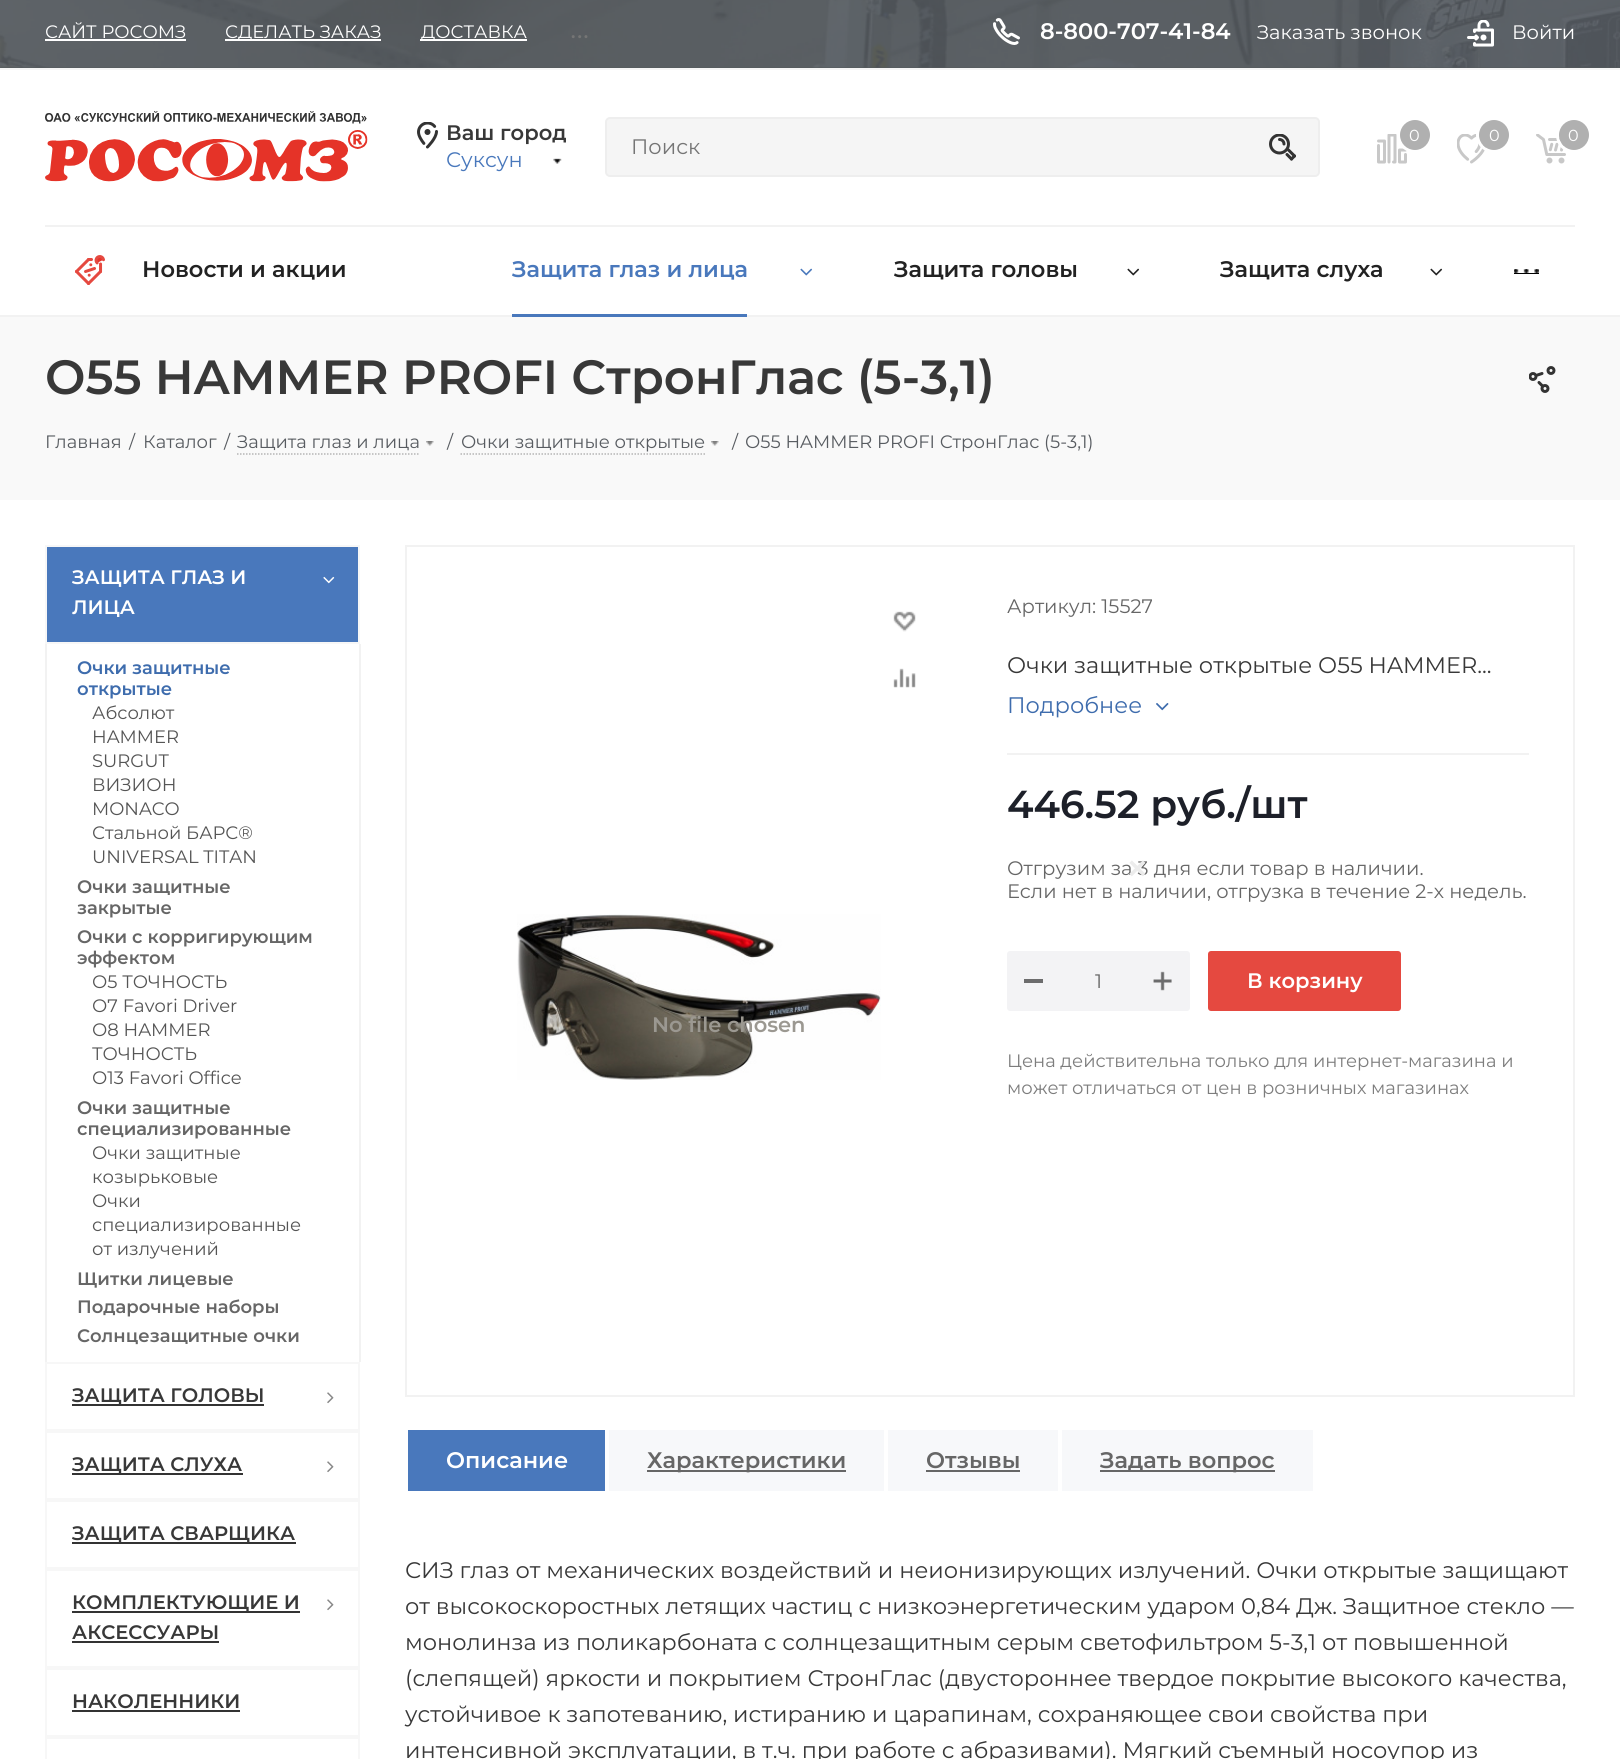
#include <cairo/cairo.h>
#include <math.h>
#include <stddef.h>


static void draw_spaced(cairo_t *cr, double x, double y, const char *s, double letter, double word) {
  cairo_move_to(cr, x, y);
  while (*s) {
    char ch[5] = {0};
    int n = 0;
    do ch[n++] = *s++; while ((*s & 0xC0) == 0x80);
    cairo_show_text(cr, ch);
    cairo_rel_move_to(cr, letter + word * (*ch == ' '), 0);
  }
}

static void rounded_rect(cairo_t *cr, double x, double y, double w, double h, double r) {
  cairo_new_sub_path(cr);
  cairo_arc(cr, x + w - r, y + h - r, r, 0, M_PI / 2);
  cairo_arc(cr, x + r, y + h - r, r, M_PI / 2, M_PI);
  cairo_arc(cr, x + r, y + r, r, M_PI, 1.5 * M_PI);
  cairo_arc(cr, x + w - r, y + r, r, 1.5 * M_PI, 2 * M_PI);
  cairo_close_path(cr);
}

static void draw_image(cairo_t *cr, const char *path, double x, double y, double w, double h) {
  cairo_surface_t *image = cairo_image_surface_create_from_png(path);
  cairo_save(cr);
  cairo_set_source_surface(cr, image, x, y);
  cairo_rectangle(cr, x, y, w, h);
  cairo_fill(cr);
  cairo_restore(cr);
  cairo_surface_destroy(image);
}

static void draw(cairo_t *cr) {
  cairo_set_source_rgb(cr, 1, 1, 1);
  cairo_paint(cr);
  cairo_set_source_rgb(cr, 85 / 255.0, 90 / 255.0, 93 / 255.0);
  cairo_rectangle(cr, 0, 67, 1620, 1);
  cairo_fill(cr);
  draw_image(cr, "images/1.png", 0, 0, 1620, 68);
  cairo_set_source_rgb(cr, 246 / 255.0, 246 / 255.0, 246 / 255.0);
  cairo_rectangle(cr, 0, 68, 1620, 2);
  cairo_fill(cr);
  cairo_set_source_rgb(cr, 1, 1, 1);
  cairo_rectangle(cr, 45, 39, 141, 2);
  cairo_fill(cr);
  cairo_rectangle(cr, 225, 39, 156, 2);
  cairo_fill(cr);
  cairo_rectangle(cr, 420, 39, 107, 2);
  cairo_fill(cr);
  draw_image(cr, "images/2.png", 993, 18, 27, 27);
  draw_image(cr, "images/3.png", 1467, 20, 27, 27);
  draw_image(cr, "images/4.png", 45, 111, 323, 71);
  draw_image(cr, "images/5.png", 417, 122, 21, 27);
  draw_image(cr, "images/6.png", 553, 158, 9, 6);
  draw_image(cr, "images/7.png", 1377, 134, 30, 30);
  cairo_arc(cr, 1415, 135, 16.5, 0, 2 * M_PI);
  cairo_set_line_width(cr, 3);
  cairo_stroke(cr);
  cairo_set_source_rgb(cr, 176 / 255.0, 176 / 255.0, 176 / 255.0);
  cairo_arc(cr, 1415, 135, 15, 0, 2 * M_PI);
  cairo_fill(cr);
  draw_image(cr, "images/8.png", 1457, 134, 29, 30);
  cairo_arc(cr, 1494, 135, 16.5, 0, 2 * M_PI);
  cairo_set_source_rgb(cr, 1, 1, 1);
  cairo_stroke(cr);
  cairo_set_source_rgb(cr, 176 / 255.0, 176 / 255.0, 176 / 255.0);
  cairo_arc(cr, 1494, 135, 15, 0, 2 * M_PI);
  cairo_fill(cr);
  draw_image(cr, "images/9.png", 1536, 134, 30, 30);
  cairo_arc(cr, 1574, 135, 16.5, 0, 2 * M_PI);
  cairo_set_source_rgb(cr, 1, 1, 1);
  cairo_stroke(cr);
  cairo_set_source_rgb(cr, 176 / 255.0, 176 / 255.0, 176 / 255.0);
  cairo_arc(cr, 1574, 135, 15, 0, 2 * M_PI);
  cairo_fill(cr);
  cairo_set_source_rgb(cr, 245 / 255.0, 245 / 255.0, 245 / 255.0);
  rounded_rect(cr, 606, 118, 713, 58, 4);
  cairo_fill_preserve(cr);
  cairo_set_source_rgb(cr, 238 / 255.0, 238 / 255.0, 238 / 255.0);
  cairo_set_line_width(cr, 2);
  cairo_stroke(cr);
  draw_image(cr, "images/10.png", 1269, 134, 27, 27);
  cairo_set_source_rgb(cr, 242 / 255.0, 242 / 255.0, 242 / 255.0);
  cairo_rectangle(cr, 0, 315, 1620, 2);
  cairo_fill(cr);
  cairo_rectangle(cr, 45, 225, 1530, 2);
  cairo_fill(cr);
  draw_image(cr, "images/11.png", 75, 255, 30, 30);
  cairo_set_source_rgb(cr, 73 / 255.0, 120 / 255.0, 188 / 255.0);
  cairo_rectangle(cr, 512, 314, 235, 3);
  cairo_fill(cr);
  draw_image(cr, "images/12.png", 800, 268, 13, 8);
  draw_image(cr, "images/13.png", 1127, 268, 13, 8);
  draw_image(cr, "images/13.png", 1430, 268, 13, 8);
  cairo_set_source_rgb(cr, 0, 0, 0);
  cairo_rectangle(cr, 1514, 269, 25, 5);
  cairo_fill(cr);
  draw_image(cr, "images/14.png", 1514, 269, 25, 4);
  cairo_set_source_rgb(cr, 249 / 255.0, 249 / 255.0, 249 / 255.0);
  cairo_rectangle(cr, 0, 317, 1620, 183);
  cairo_fill(cr);
  draw_image(cr, "images/15.png", 1529, 366, 27, 27);
  cairo_new_path(cr);
  cairo_move_to(cr, 237, 454);
  cairo_line_to(cr, 420, 454);
  cairo_set_source_rgb(cr, 180 / 255.0, 180 / 255.0, 180 / 255.0);
  cairo_set_line_width(cr, 1.5);
  cairo_set_dash(cr, (double[]){1.5, 1.5}, 2, 0);
  cairo_stroke(cr);
  draw_image(cr, "images/16.png", 426, 441, 8, 5);
  cairo_new_path(cr);
  cairo_move_to(cr, 460.5, 454);
  cairo_line_to(cr, 705, 454);
  cairo_stroke(cr);
  draw_image(cr, "images/16.png", 711, 441, 8, 5);
  cairo_set_source_rgb(cr, 73 / 255.0, 120 / 255.0, 188 / 255.0);
  cairo_rectangle(cr, 46, 546, 313, 97);
  cairo_fill_preserve(cr);
  cairo_set_source_rgb(cr, 247 / 255.0, 247 / 255.0, 247 / 255.0);
  cairo_set_line_width(cr, 2);
  cairo_set_dash(cr, NULL, 0, 0);
  cairo_stroke(cr);
  draw_image(cr, "images/17.png", 323, 576, 12, 8);
  cairo_set_source_rgb(cr, 242 / 255.0, 242 / 255.0, 242 / 255.0);
  cairo_rectangle(cr, 359, 644, 2, 718);
  cairo_fill(cr);
  cairo_rectangle(cr, 45, 644, 2, 718);
  cairo_fill(cr);
  cairo_rectangle(cr, 46, 1363, 313, 67);
  cairo_set_source_rgb(cr, 247 / 255.0, 247 / 255.0, 247 / 255.0);
  cairo_stroke(cr);
  cairo_set_source_rgb(cr, 51 / 255.0, 51 / 255.0, 51 / 255.0);
  cairo_rectangle(cr, 72, 1404, 192, 2);
  cairo_fill(cr);
  draw_image(cr, "images/18.png", 327, 1392, 7, 12);
  cairo_rectangle(cr, 46, 1432, 313, 67);
  cairo_set_source_rgb(cr, 247 / 255.0, 247 / 255.0, 247 / 255.0);
  cairo_stroke(cr);
  cairo_set_source_rgb(cr, 51 / 255.0, 51 / 255.0, 51 / 255.0);
  cairo_rectangle(cr, 72, 1473, 171, 2);
  cairo_fill(cr);
  draw_image(cr, "images/18.png", 327, 1461, 7, 12);
  cairo_rectangle(cr, 46, 1501, 313, 67);
  cairo_set_source_rgb(cr, 247 / 255.0, 247 / 255.0, 247 / 255.0);
  cairo_stroke(cr);
  cairo_set_source_rgb(cr, 51 / 255.0, 51 / 255.0, 51 / 255.0);
  cairo_rectangle(cr, 72, 1542, 224, 2);
  cairo_fill(cr);
  cairo_rectangle(cr, 46, 1570, 313, 97);
  cairo_set_source_rgb(cr, 247 / 255.0, 247 / 255.0, 247 / 255.0);
  cairo_stroke(cr);
  cairo_set_source_rgb(cr, 51 / 255.0, 51 / 255.0, 51 / 255.0);
  cairo_rectangle(cr, 72, 1611, 228, 2);
  cairo_fill(cr);
  draw_image(cr, "images/18.png", 327, 1599, 7, 12);
  cairo_rectangle(cr, 72, 1641, 147, 2);
  cairo_fill(cr);
  cairo_rectangle(cr, 46, 1669, 313, 67);
  cairo_set_source_rgb(cr, 247 / 255.0, 247 / 255.0, 247 / 255.0);
  cairo_stroke(cr);
  cairo_set_source_rgb(cr, 51 / 255.0, 51 / 255.0, 51 / 255.0);
  cairo_rectangle(cr, 72, 1710, 168, 2);
  cairo_fill(cr);
  cairo_rectangle(cr, 46, 1738, 313, 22);
  cairo_set_source_rgb(cr, 247 / 255.0, 247 / 255.0, 247 / 255.0);
  cairo_stroke(cr);
  cairo_rectangle(cr, 406, 546, 1168, 850);
  cairo_set_source_rgb(cr, 242 / 255.0, 242 / 255.0, 242 / 255.0);
  cairo_stroke(cr);
  draw_image(cr, "images/19.png", 893, 611, 23, 21);
  draw_image(cr, "images/20.png", 893, 668, 23, 20);
  draw_image(cr, "images/21.png", 517, 914, 364, 166);
  cairo_rectangle(cr, 1007, 753, 522, 2);
  cairo_fill(cr);
  draw_image(cr, "images/22.png", 1156, 703, 13, 8);
  cairo_set_source_rgb(cr, 243 / 255.0, 243 / 255.0, 245 / 255.0);
  rounded_rect(cr, 1008, 952, 181, 58, 2);
  cairo_fill_preserve(cr);
  cairo_stroke(cr);
  cairo_set_source_rgb(cr, 108 / 255.0, 108 / 255.0, 109 / 255.0);
  cairo_rectangle(cr, 1024, 979, 19, 4);
  cairo_fill(cr);
  draw_image(cr, "images/23.png", 1153, 971, 19, 20);
  cairo_set_source_rgb(cr, 229 / 255.0, 73 / 255.0, 64 / 255.0);
  rounded_rect(cr, 1209, 952, 191, 58, 2);
  cairo_fill_preserve(cr);
  cairo_stroke(cr);
  cairo_set_source_rgb(cr, 73 / 255.0, 120 / 255.0, 188 / 255.0);
  cairo_rectangle(cr, 408, 1430, 197, 61);
  cairo_fill(cr);
  cairo_set_source_rgb(cr, 247 / 255.0, 248 / 255.0, 250 / 255.0);
  cairo_rectangle(cr, 609, 1430, 275, 61);
  cairo_fill(cr);
  cairo_set_source_rgb(cr, 102 / 255.0, 102 / 255.0, 102 / 255.0);
  cairo_rectangle(cr, 647, 1470, 199, 2);
  cairo_fill(cr);
  cairo_set_source_rgb(cr, 247 / 255.0, 248 / 255.0, 250 / 255.0);
  cairo_rectangle(cr, 888, 1430, 170, 61);
  cairo_fill(cr);
  cairo_set_source_rgb(cr, 102 / 255.0, 102 / 255.0, 102 / 255.0);
  cairo_rectangle(cr, 926, 1470, 94, 2);
  cairo_fill(cr);
  cairo_set_source_rgb(cr, 247 / 255.0, 248 / 255.0, 250 / 255.0);
  cairo_rectangle(cr, 1062, 1430, 251, 61);
  cairo_fill(cr);
  cairo_set_source_rgb(cr, 102 / 255.0, 102 / 255.0, 102 / 255.0);
  cairo_rectangle(cr, 1100, 1470, 175, 2);
  cairo_fill(cr);
  cairo_select_font_face(cr, "Montserrat", CAIRO_FONT_SLANT_NORMAL, CAIRO_FONT_WEIGHT_NORMAL);
  cairo_set_font_size(cr, 18);
  cairo_set_source_rgb(cr, 1, 1, 1);
  cairo_move_to(cr, 45, 38);
  cairo_show_text(cr, "САЙТ РОСОМЗ");
  cairo_move_to(cr, 225, 38);
  cairo_show_text(cr, "СДЕЛАТЬ ЗАКАЗ");
  cairo_move_to(cr, 421, 38);
  cairo_show_text(cr, "ДОСТАВКА");
  cairo_select_font_face(cr, "Montserrat SemiBold", CAIRO_FONT_SLANT_NORMAL, CAIRO_FONT_WEIGHT_NORMAL);
  cairo_set_source_rgb(cr, 117 / 255.0, 117 / 255.0, 117 / 255.0);
  draw_spaced(cr, 571, 38, "...", 2, 0);
  cairo_set_font_size(cr, 22.5);
  cairo_set_source_rgb(cr, 1, 1, 1);
  cairo_move_to(cr, 1040, 39);
  cairo_show_text(cr, "8-800-707-41-84");
  cairo_select_font_face(cr, "Montserrat", CAIRO_FONT_SLANT_NORMAL, CAIRO_FONT_WEIGHT_NORMAL);
  cairo_set_font_size(cr, 19.5);
  cairo_move_to(cr, 1257, 39);
  cairo_show_text(cr, "Заказать звонок");
  cairo_move_to(cr, 1512, 39);
  cairo_show_text(cr, "Войти");
  cairo_select_font_face(cr, "Montserrat SemiBold", CAIRO_FONT_SLANT_NORMAL, CAIRO_FONT_WEIGHT_NORMAL);
  cairo_set_font_size(cr, 21);
  cairo_set_source_rgb(cr, 56 / 255.0, 56 / 255.0, 56 / 255.0);
  cairo_move_to(cr, 446, 140);
  cairo_show_text(cr, "Ваш город");
  cairo_select_font_face(cr, "Montserrat", CAIRO_FONT_SLANT_NORMAL, CAIRO_FONT_WEIGHT_NORMAL);
  cairo_set_source_rgb(cr, 73 / 255.0, 120 / 255.0, 188 / 255.0);
  cairo_move_to(cr, 446, 167);
  cairo_show_text(cr, "Суксун");
  cairo_set_font_size(cr, 16);
  cairo_set_source_rgb(cr, 1, 1, 1);
  cairo_move_to(cr, 1409, 141);
  cairo_show_text(cr, "0");
  cairo_move_to(cr, 1489, 141);
  cairo_show_text(cr, "0");
  cairo_move_to(cr, 1568, 141);
  cairo_show_text(cr, "0");
  cairo_set_font_size(cr, 21);
  cairo_set_source_rgb(cr, 117 / 255.0, 117 / 255.0, 117 / 255.0);
  cairo_move_to(cr, 631, 154);
  cairo_show_text(cr, "Поиск");
  cairo_select_font_face(cr, "Montserrat SemiBold", CAIRO_FONT_SLANT_NORMAL, CAIRO_FONT_WEIGHT_NORMAL);
  cairo_set_font_size(cr, 22.5);
  cairo_set_source_rgb(cr, 34 / 255.0, 34 / 255.0, 34 / 255.0);
  cairo_move_to(cr, 142, 277);
  cairo_show_text(cr, "Новости и акции");
  cairo_set_source_rgb(cr, 73 / 255.0, 120 / 255.0, 188 / 255.0);
  cairo_move_to(cr, 512, 277);
  cairo_show_text(cr, "Защита глаз и лица");
  cairo_set_source_rgb(cr, 34 / 255.0, 34 / 255.0, 34 / 255.0);
  cairo_move_to(cr, 894, 277);
  cairo_show_text(cr, "Защита головы");
  cairo_move_to(cr, 1220, 277);
  cairo_show_text(cr, "Защита слуха");
  cairo_set_font_size(cr, 48);
  cairo_set_source_rgb(cr, 56 / 255.0, 56 / 255.0, 56 / 255.0);
  cairo_move_to(cr, 45, 394);
  cairo_show_text(cr, "О55 HAMMER PROFI СтронГлас (5-3,1)");
  cairo_select_font_face(cr, "Montserrat", CAIRO_FONT_SLANT_NORMAL, CAIRO_FONT_WEIGHT_NORMAL);
  cairo_set_font_size(cr, 18);
  cairo_set_source_rgb(cr, 88 / 255.0, 92 / 255.0, 97 / 255.0);
  cairo_move_to(cr, 45, 448);
  cairo_show_text(cr, "Главная");
  cairo_move_to(cr, 129, 448);
  cairo_show_text(cr, "/");
  cairo_move_to(cr, 143, 448);
  cairo_show_text(cr, "Каталог");
  cairo_move_to(cr, 224, 448);
  cairo_show_text(cr, "/");
  cairo_move_to(cr, 237, 448);
  cairo_show_text(cr, "Защита глаз и лица");
  cairo_move_to(cr, 447, 448);
  cairo_show_text(cr, "/");
  cairo_move_to(cr, 461, 448);
  cairo_show_text(cr, "Очки защитные открытые");
  cairo_move_to(cr, 732, 448);
  cairo_show_text(cr, "/");
  cairo_move_to(cr, 745, 448);
  cairo_show_text(cr, "О55 HAMMER PROFI СтронГлас (5-3,1)");
  cairo_select_font_face(cr, "Montserrat SemiBold", CAIRO_FONT_SLANT_NORMAL, CAIRO_FONT_WEIGHT_NORMAL);
  cairo_set_font_size(cr, 19.5);
  cairo_set_source_rgb(cr, 1, 1, 1);
  cairo_move_to(cr, 72, 584);
  cairo_show_text(cr, "ЗАЩИТА ГЛАЗ И");
  cairo_move_to(cr, 72, 614);
  cairo_show_text(cr, "ЛИЦА");
  cairo_set_font_size(cr, 18);
  cairo_set_source_rgb(cr, 62 / 255.0, 108 / 255.0, 173 / 255.0);
  cairo_move_to(cr, 77, 674);
  cairo_show_text(cr, "Очки защитные");
  cairo_move_to(cr, 77, 695);
  cairo_show_text(cr, "открытые");
  cairo_select_font_face(cr, "Montserrat", CAIRO_FONT_SLANT_NORMAL, CAIRO_FONT_WEIGHT_NORMAL);
  cairo_set_source_rgb(cr, 85 / 255.0, 85 / 255.0, 85 / 255.0);
  cairo_move_to(cr, 92, 719);
  cairo_show_text(cr, "Абсолют");
  cairo_move_to(cr, 92, 743);
  cairo_show_text(cr, "HAMMER");
  cairo_move_to(cr, 92, 767);
  cairo_show_text(cr, "SURGUT");
  cairo_move_to(cr, 92, 791);
  cairo_show_text(cr, "ВИЗИОН");
  cairo_move_to(cr, 92, 815);
  cairo_show_text(cr, "MONACO");
  cairo_move_to(cr, 92, 839);
  cairo_show_text(cr, "Стальной БАРС®");
  cairo_move_to(cr, 92, 863);
  cairo_show_text(cr, "UNIVERSAL TITAN");
  cairo_select_font_face(cr, "Montserrat SemiBold", CAIRO_FONT_SLANT_NORMAL, CAIRO_FONT_WEIGHT_NORMAL);
  cairo_set_source_rgb(cr, 102 / 255.0, 102 / 255.0, 102 / 255.0);
  cairo_move_to(cr, 77, 893);
  cairo_show_text(cr, "Очки защитные");
  cairo_move_to(cr, 77, 914);
  cairo_show_text(cr, "закрытые");
  cairo_move_to(cr, 77, 943);
  cairo_show_text(cr, "Очки с корригирующим");
  cairo_move_to(cr, 77, 964);
  cairo_show_text(cr, "эффектом");
  cairo_select_font_face(cr, "Montserrat", CAIRO_FONT_SLANT_NORMAL, CAIRO_FONT_WEIGHT_NORMAL);
  cairo_set_source_rgb(cr, 85 / 255.0, 85 / 255.0, 85 / 255.0);
  cairo_move_to(cr, 92, 988);
  cairo_show_text(cr, "О5 ТОЧНОСТЬ");
  cairo_move_to(cr, 92, 1012);
  cairo_show_text(cr, "О7 Favori Driver");
  cairo_move_to(cr, 92, 1036);
  cairo_show_text(cr, "О8 HAMMER");
  cairo_move_to(cr, 92, 1060);
  cairo_show_text(cr, "ТОЧНОСТЬ");
  cairo_move_to(cr, 92, 1084);
  cairo_show_text(cr, "О13 Favori Office");
  cairo_select_font_face(cr, "Montserrat SemiBold", CAIRO_FONT_SLANT_NORMAL, CAIRO_FONT_WEIGHT_NORMAL);
  cairo_set_source_rgb(cr, 102 / 255.0, 102 / 255.0, 102 / 255.0);
  cairo_move_to(cr, 77, 1114);
  cairo_show_text(cr, "Очки защитные");
  cairo_move_to(cr, 77, 1135);
  cairo_show_text(cr, "специализированные");
  cairo_select_font_face(cr, "Montserrat", CAIRO_FONT_SLANT_NORMAL, CAIRO_FONT_WEIGHT_NORMAL);
  cairo_set_source_rgb(cr, 85 / 255.0, 85 / 255.0, 85 / 255.0);
  cairo_move_to(cr, 92, 1159);
  cairo_show_text(cr, "Очки защитные");
  cairo_move_to(cr, 92, 1183);
  cairo_show_text(cr, "козырьковые");
  cairo_move_to(cr, 92, 1207);
  cairo_show_text(cr, "Очки");
  cairo_move_to(cr, 92, 1231);
  cairo_show_text(cr, "специализированные");
  cairo_move_to(cr, 92, 1255);
  cairo_show_text(cr, "от излучений");
  cairo_select_font_face(cr, "Montserrat SemiBold", CAIRO_FONT_SLANT_NORMAL, CAIRO_FONT_WEIGHT_NORMAL);
  cairo_set_source_rgb(cr, 102 / 255.0, 102 / 255.0, 102 / 255.0);
  cairo_move_to(cr, 77, 1285);
  cairo_show_text(cr, "Щитки лицевые");
  cairo_move_to(cr, 77, 1313);
  cairo_show_text(cr, "Подарочные наборы");
  cairo_move_to(cr, 77, 1342);
  cairo_show_text(cr, "Солнцезащитные очки");
  cairo_set_font_size(cr, 19.5);
  cairo_set_source_rgb(cr, 56 / 255.0, 56 / 255.0, 56 / 255.0);
  cairo_move_to(cr, 72, 1402);
  cairo_show_text(cr, "ЗАЩИТА ГОЛОВЫ");
  cairo_move_to(cr, 72, 1471);
  cairo_show_text(cr, "ЗАЩИТА СЛУХА");
  cairo_move_to(cr, 72, 1540);
  cairo_show_text(cr, "ЗАЩИТА СВАРЩИКА");
  cairo_move_to(cr, 72, 1609);
  cairo_show_text(cr, "КОМПЛЕКТУЮЩИЕ И");
  cairo_move_to(cr, 72, 1639);
  cairo_show_text(cr, "АКСЕССУАРЫ");
  cairo_move_to(cr, 72, 1708);
  cairo_show_text(cr, "НАКОЛЕННИКИ");
  cairo_set_font_size(cr, 21);
  cairo_set_source_rgb(cr, 155 / 255.0, 152 / 255.0, 145 / 255.0);
  cairo_move_to(cr, 652, 1032);
  cairo_show_text(cr, "No file chosen");
  cairo_select_font_face(cr, "Montserrat", CAIRO_FONT_SLANT_NORMAL, CAIRO_FONT_WEIGHT_NORMAL);
  cairo_set_font_size(cr, 19.5);
  cairo_set_source_rgb(cr, 102 / 255.0, 102 / 255.0, 102 / 255.0);
  cairo_move_to(cr, 1007, 613);
  cairo_show_text(cr, "Артикул: 15527");
  cairo_set_font_size(cr, 22.5);
  cairo_set_source_rgb(cr, 56 / 255.0, 56 / 255.0, 56 / 255.0);
  cairo_move_to(cr, 1007, 673);
  cairo_show_text(cr, "Очки защитные открытые О55 HAMMER...");
  cairo_set_source_rgb(cr, 62 / 255.0, 108 / 255.0, 173 / 255.0);
  cairo_move_to(cr, 1007, 713);
  cairo_show_text(cr, "Подробнее");
  cairo_select_font_face(cr, "Montserrat SemiBold", CAIRO_FONT_SLANT_NORMAL, CAIRO_FONT_WEIGHT_NORMAL);
  cairo_set_font_size(cr, 39);
  cairo_set_source_rgb(cr, 29 / 255.0, 32 / 255.0, 41 / 255.0);
  cairo_move_to(cr, 1007, 818);
  cairo_show_text(cr, "446.52 руб./шт");
  cairo_select_font_face(cr, "Montserrat", CAIRO_FONT_SLANT_NORMAL, CAIRO_FONT_WEIGHT_NORMAL);
  cairo_set_font_size(cr, 19.5);
  cairo_set_source_rgb(cr, 102 / 255.0, 102 / 255.0, 102 / 255.0);
  cairo_move_to(cr, 1007, 875);
  cairo_show_text(cr, "Отгрузим за 3 дня если товар в наличии.");
  cairo_select_font_face(cr, "Liberation Sans", CAIRO_FONT_SLANT_NORMAL, CAIRO_FONT_WEIGHT_BOLD);
  cairo_set_font_size(cr, 32);
  cairo_set_source_rgb(cr, 236 / 255.0, 236 / 255.0, 236 / 255.0);
  cairo_move_to(cr, 1128, 879);
  cairo_show_text(cr, "×");
  cairo_select_font_face(cr, "Montserrat", CAIRO_FONT_SLANT_NORMAL, CAIRO_FONT_WEIGHT_NORMAL);
  cairo_set_font_size(cr, 19.5);
  cairo_set_source_rgb(cr, 102 / 255.0, 102 / 255.0, 102 / 255.0);
  cairo_move_to(cr, 1007, 898);
  cairo_show_text(cr, "Если нет в наличии, отгрузка в течение 2-х недель.");
  cairo_move_to(cr, 1095, 988);
  cairo_show_text(cr, "1");
  cairo_select_font_face(cr, "Montserrat SemiBold", CAIRO_FONT_SLANT_NORMAL, CAIRO_FONT_WEIGHT_NORMAL);
  cairo_set_font_size(cr, 21);
  cairo_set_source_rgb(cr, 1, 1, 1);
  cairo_move_to(cr, 1247, 988);
  cairo_show_text(cr, "В корзину");
  cairo_select_font_face(cr, "Montserrat", CAIRO_FONT_SLANT_NORMAL, CAIRO_FONT_WEIGHT_NORMAL);
  cairo_set_font_size(cr, 18);
  cairo_set_source_rgb(cr, 125 / 255.0, 125 / 255.0, 125 / 255.0);
  cairo_move_to(cr, 1007, 1067);
  cairo_show_text(cr, "Цена действительна только для интернет-магазина и");
  cairo_move_to(cr, 1007, 1094);
  cairo_show_text(cr, "может отличаться от цен в розничных магазинах");
  cairo_select_font_face(cr, "Montserrat SemiBold", CAIRO_FONT_SLANT_NORMAL, CAIRO_FONT_WEIGHT_NORMAL);
  cairo_set_font_size(cr, 22.5);
  cairo_set_source_rgb(cr, 1, 1, 1);
  cairo_move_to(cr, 446, 1468);
  cairo_show_text(cr, "Описание");
  cairo_set_source_rgb(cr, 102 / 255.0, 102 / 255.0, 102 / 255.0);
  cairo_move_to(cr, 647, 1468);
  cairo_show_text(cr, "Характеристики");
  cairo_move_to(cr, 926, 1468);
  cairo_show_text(cr, "Отзывы");
  cairo_move_to(cr, 1100, 1468);
  cairo_show_text(cr, "Задать вопрос");
  cairo_select_font_face(cr, "Montserrat", CAIRO_FONT_SLANT_NORMAL, CAIRO_FONT_WEIGHT_NORMAL);
  cairo_set_source_rgb(cr, 56 / 255.0, 56 / 255.0, 56 / 255.0);
  cairo_move_to(cr, 405, 1578);
  cairo_show_text(cr, "СИЗ глаз от механических воздействий и неионизирующих излучений. Очки открытые защищают");
  cairo_move_to(cr, 405, 1614);
  cairo_show_text(cr, "от высокоскоростных летящих частиц с низкоэнергетическим ударом 0,84 Дж. Защитное стекло —");
  cairo_move_to(cr, 405, 1650);
  cairo_show_text(cr, "монолинза из поликарбоната с солнцезащитным серым светофильтром 5-3,1 от повышенной");
  cairo_move_to(cr, 405, 1686);
  cairo_show_text(cr, "(слепящей) яркости и покрытием СтронГлас (двустороннее твердое покрытие высокого качества,");
  cairo_move_to(cr, 405, 1722);
  cairo_show_text(cr, "устойчивое к запотеванию, истиранию и царапинам, сохраняющее свои свойства при");
  cairo_move_to(cr, 405, 1758);
  cairo_show_text(cr, "интенсивной эксплуатации, в т.ч. при работе с абразивами). Мягкий съемный носоупор из");
}

int main(void) {
  cairo_surface_t *surface = cairo_image_surface_create(CAIRO_FORMAT_RGB24, 1620, 1759);
  cairo_t *cr = cairo_create(surface);
  cairo_font_options_t *options = cairo_font_options_create();
  cairo_font_options_set_hint_metrics(options, CAIRO_HINT_METRICS_OFF);
  cairo_font_options_set_hint_style(options, CAIRO_HINT_STYLE_NONE);
  cairo_set_font_options(cr, options);
  cairo_set_miter_limit(cr, 4);
  draw(cr);
  cairo_surface_write_to_png(surface, "out.png");
  cairo_font_options_destroy(options);
  cairo_destroy(cr);
  cairo_surface_destroy(surface);
  return 0;
}
